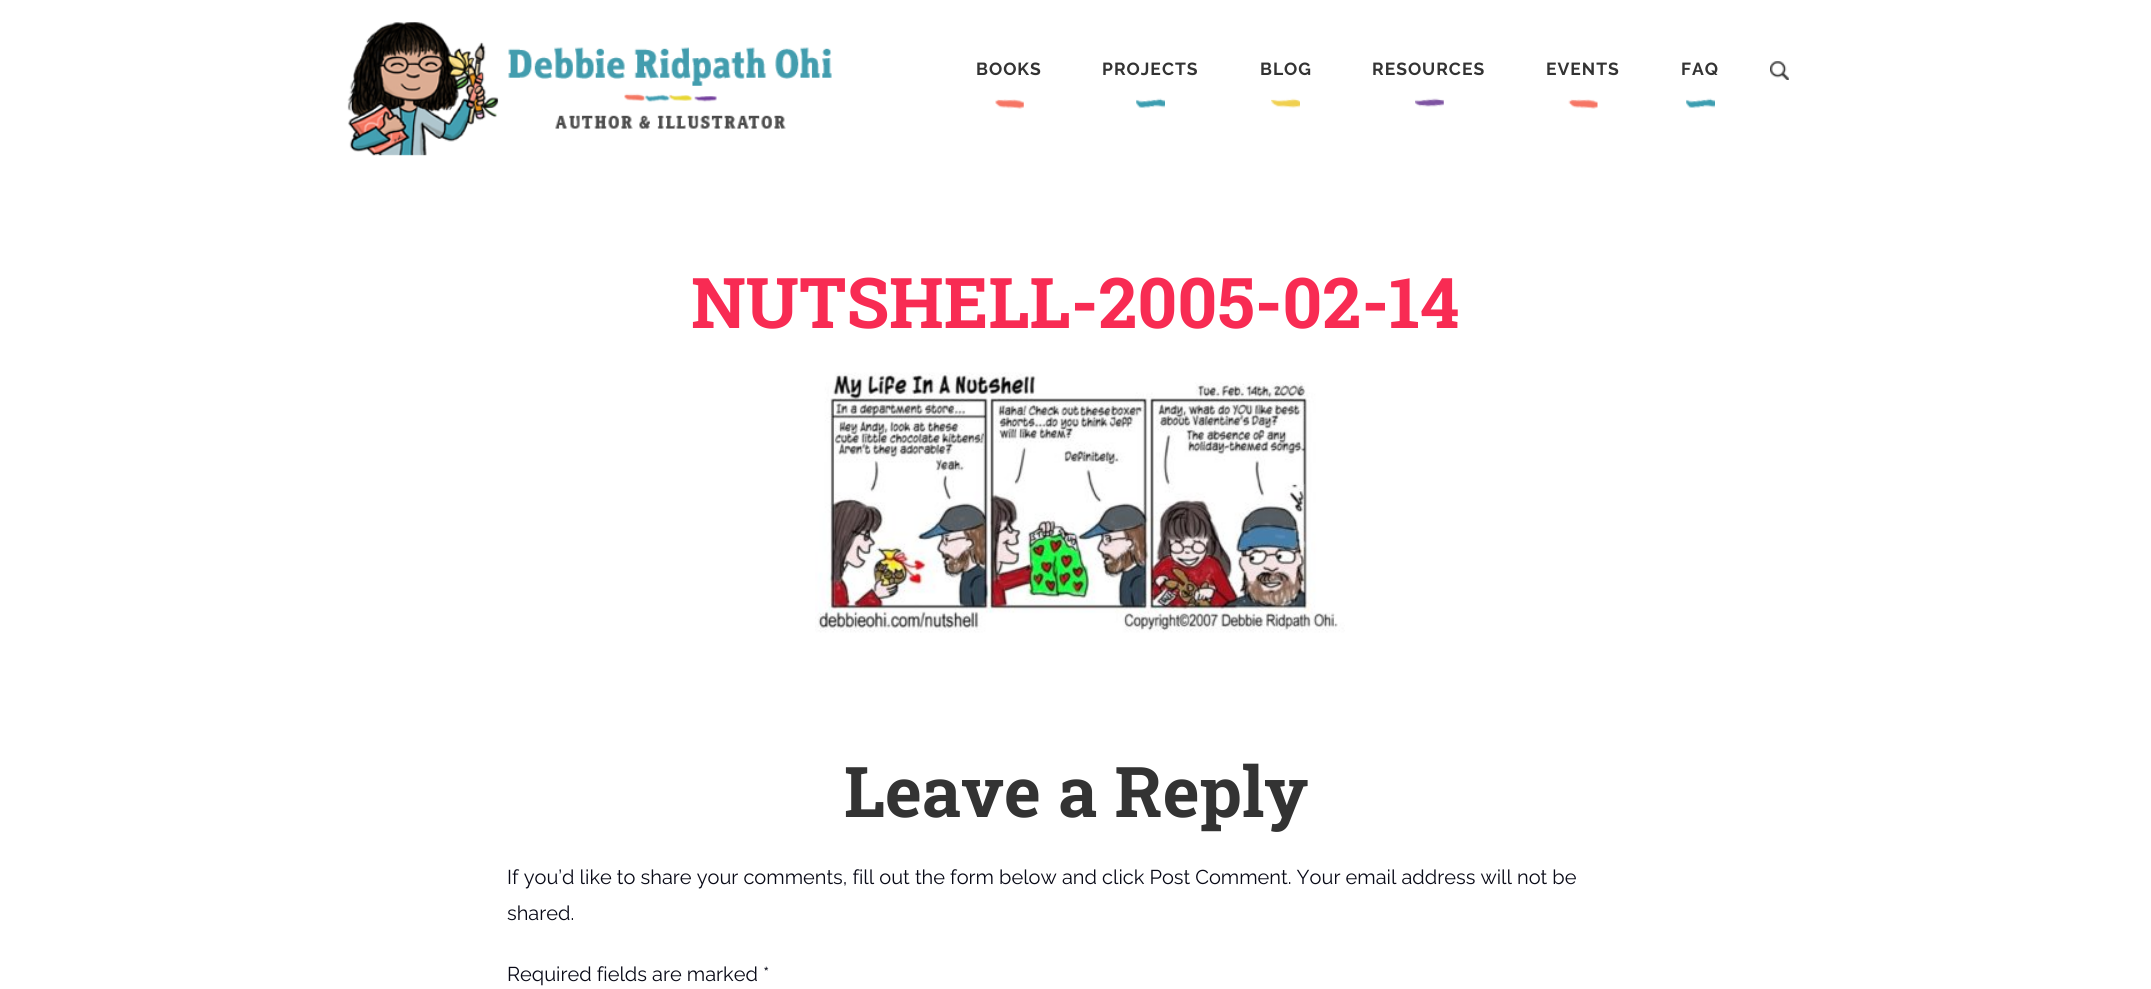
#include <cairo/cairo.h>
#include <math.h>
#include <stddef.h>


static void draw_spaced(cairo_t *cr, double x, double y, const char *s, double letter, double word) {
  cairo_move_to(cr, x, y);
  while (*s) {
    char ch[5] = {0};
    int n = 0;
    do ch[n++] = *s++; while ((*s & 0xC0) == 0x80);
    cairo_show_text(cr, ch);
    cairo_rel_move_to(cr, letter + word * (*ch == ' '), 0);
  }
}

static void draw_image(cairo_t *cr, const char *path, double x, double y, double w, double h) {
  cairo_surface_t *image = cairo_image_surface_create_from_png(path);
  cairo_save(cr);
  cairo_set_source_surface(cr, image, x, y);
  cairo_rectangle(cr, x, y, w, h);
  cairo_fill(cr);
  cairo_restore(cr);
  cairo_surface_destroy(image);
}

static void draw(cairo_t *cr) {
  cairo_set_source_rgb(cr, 1, 1, 1);
  cairo_paint(cr);
  draw_image(cr, "images/1.png", 347, 22, 485, 134);
  draw_image(cr, "images/2.png", 995, 99, 29, 10);
  draw_image(cr, "images/3.png", 1136, 98, 29, 11);
  draw_image(cr, "images/4.png", 1271, 98, 29, 10);
  draw_image(cr, "images/5.png", 1415, 98, 29, 9);
  draw_image(cr, "images/6.png", 1568, 99, 30, 10);
  draw_image(cr, "images/3.png", 1686, 98, 29, 11);
  draw_image(cr, "images/7.png", 1770, 61, 19, 19);
  draw_image(cr, "images/8.png", 815, 372, 530, 261);
  cairo_select_font_face(cr, "Raleway", CAIRO_FONT_SLANT_NORMAL, CAIRO_FONT_WEIGHT_BOLD);
  cairo_set_font_size(cr, 17.5);
  cairo_set_source_rgb(cr, 51 / 255.0, 51 / 255.0, 51 / 255.0);
  draw_spaced(cr, 976, 75, "BOOKS", 1, 0);
  draw_spaced(cr, 1102, 75, "PROJECTS", 1, 0);
  draw_spaced(cr, 1260, 75, "BLOG", 1, 0);
  draw_spaced(cr, 1372, 75, "RESOURCES", 1, 0);
  draw_spaced(cr, 1546, 75, "EVENTS", 1, 0);
  draw_spaced(cr, 1681, 75, "FAQ", 1, 0);
  cairo_select_font_face(cr, "Roboto Slab", CAIRO_FONT_SLANT_NORMAL, CAIRO_FONT_WEIGHT_BOLD);
  cairo_set_font_size(cr, 70);
  cairo_set_source_rgb(cr, 248 / 255.0, 43 / 255.0, 83 / 255.0);
  cairo_move_to(cr, 691, 328);
  cairo_show_text(cr, "NUTSHELL-2005-02-14");
  cairo_set_source_rgb(cr, 51 / 255.0, 51 / 255.0, 51 / 255.0);
  cairo_move_to(cr, 844, 817);
  cairo_show_text(cr, "Leave a Reply");
  cairo_select_font_face(cr, "Raleway", CAIRO_FONT_SLANT_NORMAL, CAIRO_FONT_WEIGHT_NORMAL);
  cairo_set_font_size(cr, 20);
  cairo_set_source_rgb(cr, 9 / 255.0, 10 / 255.0, 23 / 255.0);
  cairo_move_to(cr, 507, 884);
  cairo_show_text(cr, "If you’d like to share your comments, fill out the form below and click Post Comment. Your email address will not be");
  cairo_move_to(cr, 507, 920);
  cairo_show_text(cr, "shared.");
  cairo_move_to(cr, 507, 981);
  cairo_show_text(cr, "Required fields are marked *");
}

int main(void) {
  cairo_surface_t *surface = cairo_image_surface_create(CAIRO_FORMAT_RGB24, 2151, 989);
  cairo_t *cr = cairo_create(surface);
  cairo_font_options_t *options = cairo_font_options_create();
  cairo_font_options_set_hint_metrics(options, CAIRO_HINT_METRICS_OFF);
  cairo_font_options_set_hint_style(options, CAIRO_HINT_STYLE_NONE);
  cairo_set_font_options(cr, options);
  cairo_set_miter_limit(cr, 4);
  draw(cr);
  cairo_surface_write_to_png(surface, "out.png");
  cairo_font_options_destroy(options);
  cairo_destroy(cr);
  cairo_surface_destroy(surface);
  return 0;
}
